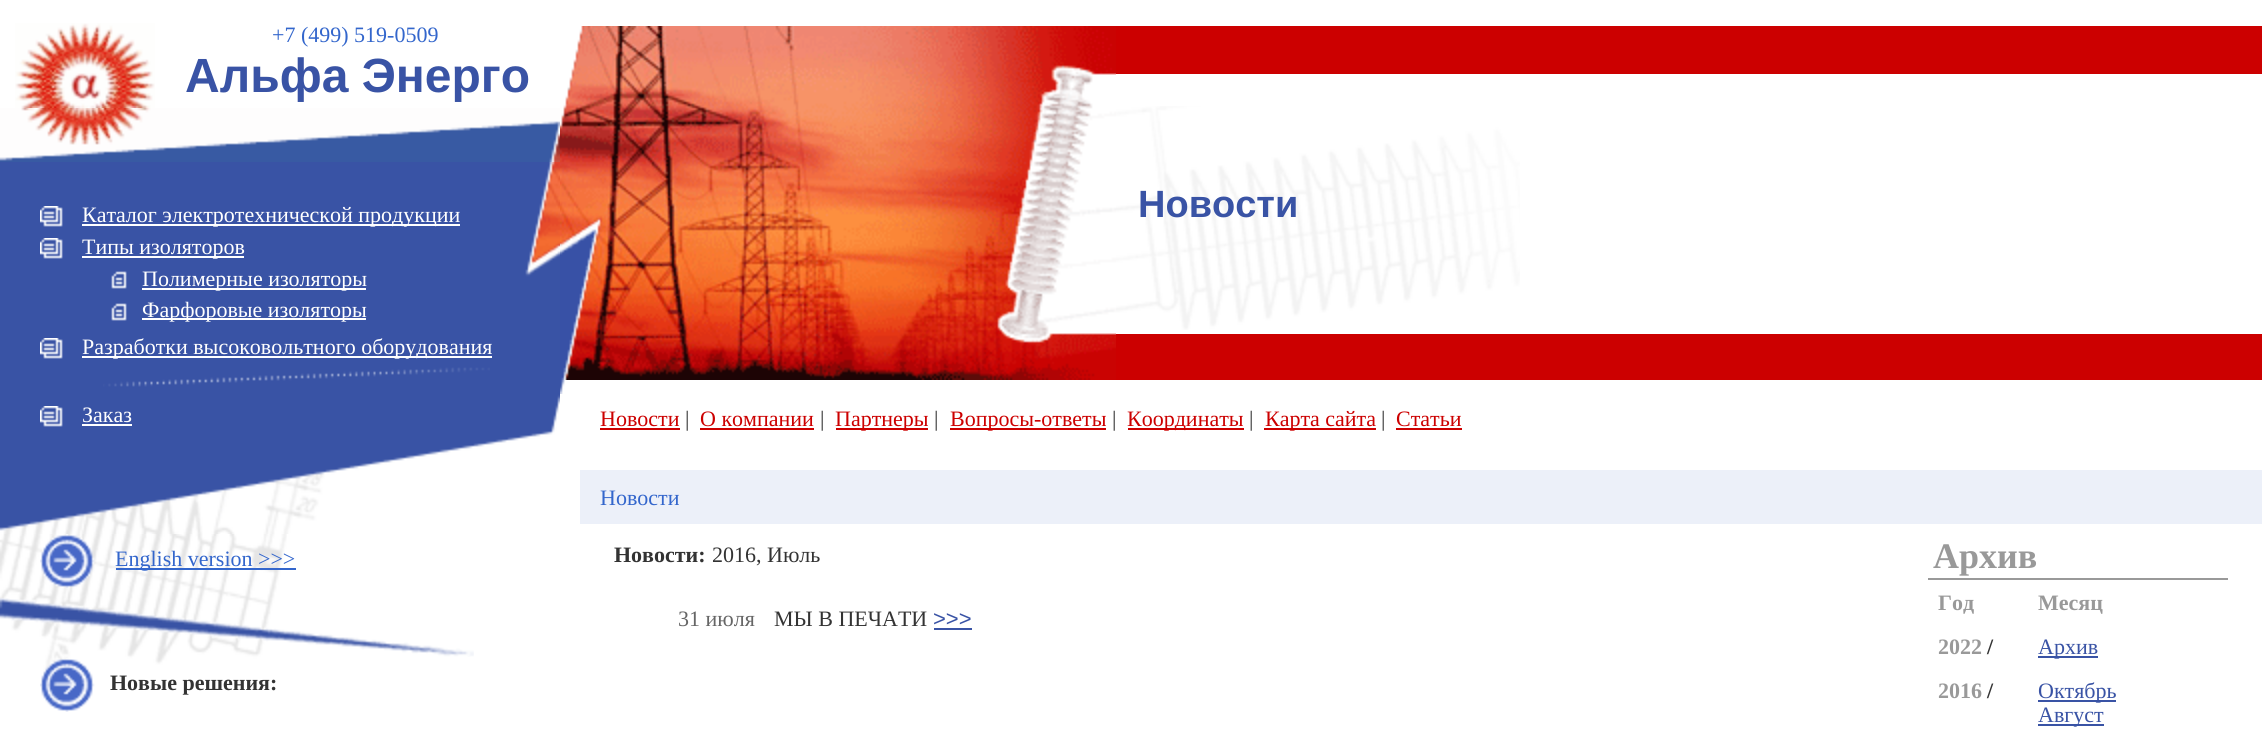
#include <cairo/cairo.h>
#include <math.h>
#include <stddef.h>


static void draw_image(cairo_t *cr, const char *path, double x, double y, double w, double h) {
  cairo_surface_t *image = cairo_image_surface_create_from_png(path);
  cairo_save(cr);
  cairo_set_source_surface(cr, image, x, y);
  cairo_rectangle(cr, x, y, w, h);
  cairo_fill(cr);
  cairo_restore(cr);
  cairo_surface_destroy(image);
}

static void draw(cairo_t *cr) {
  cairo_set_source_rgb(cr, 1, 1, 1);
  cairo_paint(cr);
  draw_image(cr, "images/1.png", 15, 23, 140, 85);
  draw_image(cr, "images/2.png", 0, 108, 560, 54);
  draw_image(cr, "images/3.png", 0, 162, 560, 372);
  draw_image(cr, "images/4.png", 40, 206, 23, 21);
  cairo_set_source_rgb(cr, 1, 1, 1);
  cairo_rectangle(cr, 82, 224, 378, 2);
  cairo_fill(cr);
  draw_image(cr, "images/4.png", 40, 238, 23, 21);
  cairo_rectangle(cr, 82, 256, 162, 2);
  cairo_fill(cr);
  draw_image(cr, "images/5.png", 111, 271, 16, 18);
  cairo_rectangle(cr, 142, 288, 224, 2);
  cairo_fill(cr);
  draw_image(cr, "images/5.png", 111, 303, 16, 18);
  cairo_rectangle(cr, 142, 318, 224, 2);
  cairo_fill(cr);
  draw_image(cr, "images/4.png", 40, 338, 23, 21);
  cairo_rectangle(cr, 82, 356, 410, 2);
  cairo_fill(cr);
  draw_image(cr, "images/6.png", 103, 367, 387, 20);
  draw_image(cr, "images/4.png", 40, 406, 23, 21);
  cairo_rectangle(cr, 82, 424, 50, 2);
  cairo_fill(cr);
  cairo_set_source_rgb(cr, 204 / 255.0, 0, 0);
  cairo_rectangle(cr, 1116, 26, 1146, 354);
  cairo_fill(cr);
  draw_image(cr, "images/7.png", 560, 26, 556, 354);
  cairo_set_source_rgb(cr, 1, 1, 1);
  cairo_rectangle(cr, 1116, 74, 1146, 260);
  cairo_fill(cr);
  draw_image(cr, "images/8.png", 1116, 106, 404, 224);
  draw_image(cr, "images/9.png", 560, 380, 5, 14);
  cairo_set_source_rgb(cr, 204 / 255.0, 0, 0);
  cairo_rectangle(cr, 600, 428, 80, 2);
  cairo_fill(cr);
  cairo_rectangle(cr, 700, 428, 114, 2);
  cairo_fill(cr);
  cairo_rectangle(cr, 836, 428, 92, 2);
  cairo_fill(cr);
  cairo_rectangle(cr, 950, 428, 156, 2);
  cairo_fill(cr);
  cairo_rectangle(cr, 1128, 428, 116, 2);
  cairo_fill(cr);
  cairo_rectangle(cr, 1264, 428, 112, 2);
  cairo_fill(cr);
  cairo_rectangle(cr, 1396, 428, 66, 2);
  cairo_fill(cr);
  cairo_set_source_rgb(cr, 236 / 255.0, 240 / 255.0, 249 / 255.0);
  cairo_rectangle(cr, 580, 470, 1682, 54);
  cairo_fill(cr);
  draw_image(cr, "images/10.png", 0, 534, 287, 146);
  draw_image(cr, "images/11.png", 40, 534, 55, 54);
  cairo_set_source_rgb(cr, 51 / 255.0, 102 / 255.0, 204 / 255.0);
  cairo_rectangle(cr, 116, 568, 180, 2);
  cairo_fill(cr);
  draw_image(cr, "images/12.png", 0, 598, 474, 59);
  draw_image(cr, "images/13.png", 40, 658, 55, 54);
  cairo_set_source_rgb(cr, 57 / 255.0, 83 / 255.0, 165 / 255.0);
  cairo_rectangle(cr, 934, 628, 38, 2);
  cairo_fill(cr);
  cairo_set_source_rgb(cr, 153 / 255.0, 153 / 255.0, 153 / 255.0);
  cairo_rectangle(cr, 1928, 578, 300, 2);
  cairo_fill(cr);
  cairo_set_source_rgb(cr, 57 / 255.0, 83 / 255.0, 165 / 255.0);
  cairo_rectangle(cr, 2038, 656, 60, 2);
  cairo_fill(cr);
  cairo_rectangle(cr, 2038, 700, 78, 2);
  cairo_fill(cr);
  cairo_rectangle(cr, 2038, 724, 66, 2);
  cairo_fill(cr);
  cairo_select_font_face(cr, "Liberation Serif", CAIRO_FONT_SLANT_NORMAL, CAIRO_FONT_WEIGHT_NORMAL);
  cairo_set_font_size(cr, 22);
  cairo_set_source_rgb(cr, 51 / 255.0, 102 / 255.0, 204 / 255.0);
  cairo_move_to(cr, 272, 42);
  cairo_show_text(cr, "+7 (499) 519-0509");
  cairo_select_font_face(cr, "Liberation Sans", CAIRO_FONT_SLANT_NORMAL, CAIRO_FONT_WEIGHT_BOLD);
  cairo_set_font_size(cr, 48);
  cairo_set_source_rgb(cr, 57 / 255.0, 83 / 255.0, 165 / 255.0);
  cairo_move_to(cr, 185, 92);
  cairo_show_text(cr, "Альфа Энерго");
  cairo_select_font_face(cr, "Liberation Serif", CAIRO_FONT_SLANT_NORMAL, CAIRO_FONT_WEIGHT_NORMAL);
  cairo_set_font_size(cr, 22);
  cairo_set_source_rgb(cr, 1, 1, 1);
  cairo_move_to(cr, 82, 222);
  cairo_show_text(cr, "Каталог электротехнической продукции");
  cairo_move_to(cr, 82, 254);
  cairo_show_text(cr, "Типы изоляторов");
  cairo_move_to(cr, 142, 286);
  cairo_show_text(cr, "Полимерные изоляторы");
  cairo_move_to(cr, 142, 317);
  cairo_show_text(cr, "Фарфоровые изоляторы");
  cairo_move_to(cr, 82, 354);
  cairo_show_text(cr, "Разработки высоковольтного оборудования");
  cairo_move_to(cr, 82, 422);
  cairo_show_text(cr, "Заказ");
  cairo_select_font_face(cr, "Liberation Sans", CAIRO_FONT_SLANT_NORMAL, CAIRO_FONT_WEIGHT_BOLD);
  cairo_set_font_size(cr, 38);
  cairo_set_source_rgb(cr, 57 / 255.0, 83 / 255.0, 165 / 255.0);
  cairo_move_to(cr, 1138, 217);
  cairo_show_text(cr, "Новости");
  cairo_select_font_face(cr, "Liberation Serif", CAIRO_FONT_SLANT_NORMAL, CAIRO_FONT_WEIGHT_NORMAL);
  cairo_set_font_size(cr, 22);
  cairo_set_source_rgb(cr, 204 / 255.0, 0, 0);
  cairo_move_to(cr, 600, 426);
  cairo_show_text(cr, "Новости");
  cairo_set_source_rgb(cr, 51 / 255.0, 51 / 255.0, 51 / 255.0);
  cairo_move_to(cr, 685, 426);
  cairo_show_text(cr, "|");
  cairo_set_source_rgb(cr, 204 / 255.0, 0, 0);
  cairo_move_to(cr, 700, 426);
  cairo_show_text(cr, "О компании");
  cairo_set_source_rgb(cr, 51 / 255.0, 51 / 255.0, 51 / 255.0);
  cairo_move_to(cr, 820, 426);
  cairo_show_text(cr, "|");
  cairo_set_source_rgb(cr, 204 / 255.0, 0, 0);
  cairo_move_to(cr, 835, 426);
  cairo_show_text(cr, "Партнеры");
  cairo_set_source_rgb(cr, 51 / 255.0, 51 / 255.0, 51 / 255.0);
  cairo_move_to(cr, 934, 426);
  cairo_show_text(cr, "|");
  cairo_set_source_rgb(cr, 204 / 255.0, 0, 0);
  cairo_move_to(cr, 950, 426);
  cairo_show_text(cr, "Вопросы-ответы");
  cairo_set_source_rgb(cr, 51 / 255.0, 51 / 255.0, 51 / 255.0);
  cairo_move_to(cr, 1112, 426);
  cairo_show_text(cr, "|");
  cairo_set_source_rgb(cr, 204 / 255.0, 0, 0);
  cairo_move_to(cr, 1127, 426);
  cairo_show_text(cr, "Координаты");
  cairo_set_source_rgb(cr, 51 / 255.0, 51 / 255.0, 51 / 255.0);
  cairo_move_to(cr, 1249, 426);
  cairo_show_text(cr, "|");
  cairo_set_source_rgb(cr, 204 / 255.0, 0, 0);
  cairo_move_to(cr, 1265, 426);
  cairo_show_text(cr, "Карта сайта");
  cairo_set_source_rgb(cr, 51 / 255.0, 51 / 255.0, 51 / 255.0);
  cairo_move_to(cr, 1381, 426);
  cairo_show_text(cr, "|");
  cairo_set_source_rgb(cr, 204 / 255.0, 0, 0);
  cairo_move_to(cr, 1396, 426);
  cairo_show_text(cr, "Статьи");
  cairo_set_source_rgb(cr, 51 / 255.0, 102 / 255.0, 204 / 255.0);
  cairo_move_to(cr, 600, 505);
  cairo_show_text(cr, "Новости");
  cairo_move_to(cr, 115, 566);
  cairo_show_text(cr, "English version >>>");
  cairo_select_font_face(cr, "Liberation Serif", CAIRO_FONT_SLANT_NORMAL, CAIRO_FONT_WEIGHT_BOLD);
  cairo_set_source_rgb(cr, 51 / 255.0, 51 / 255.0, 51 / 255.0);
  cairo_move_to(cr, 110, 690);
  cairo_show_text(cr, "Новые решения:");
  cairo_move_to(cr, 614, 562);
  cairo_show_text(cr, "Новости:");
  cairo_select_font_face(cr, "Liberation Serif", CAIRO_FONT_SLANT_NORMAL, CAIRO_FONT_WEIGHT_NORMAL);
  cairo_move_to(cr, 712, 562);
  cairo_show_text(cr, "2016, Июль");
  cairo_set_source_rgb(cr, 102 / 255.0, 102 / 255.0, 102 / 255.0);
  cairo_move_to(cr, 678, 626);
  cairo_show_text(cr, "31 июля");
  cairo_set_source_rgb(cr, 51 / 255.0, 51 / 255.0, 51 / 255.0);
  cairo_move_to(cr, 774, 626);
  cairo_show_text(cr, "МЫ В ПЕЧАТИ");
  cairo_select_font_face(cr, "Liberation Sans", CAIRO_FONT_SLANT_NORMAL, CAIRO_FONT_WEIGHT_NORMAL);
  cairo_set_source_rgb(cr, 57 / 255.0, 83 / 255.0, 165 / 255.0);
  cairo_move_to(cr, 933, 626);
  cairo_show_text(cr, ">>>");
  cairo_select_font_face(cr, "Liberation Serif", CAIRO_FONT_SLANT_NORMAL, CAIRO_FONT_WEIGHT_BOLD);
  cairo_set_font_size(cr, 36);
  cairo_set_source_rgb(cr, 153 / 255.0, 153 / 255.0, 153 / 255.0);
  cairo_move_to(cr, 1933, 568);
  cairo_show_text(cr, "Архив");
  cairo_set_font_size(cr, 22);
  cairo_move_to(cr, 1938, 610);
  cairo_show_text(cr, "Год");
  cairo_move_to(cr, 2038, 610);
  cairo_show_text(cr, "Месяц");
  cairo_move_to(cr, 1938, 654);
  cairo_show_text(cr, "2022");
  cairo_set_source_rgb(cr, 51 / 255.0, 51 / 255.0, 51 / 255.0);
  cairo_move_to(cr, 1987, 654);
  cairo_show_text(cr, "/");
  cairo_select_font_face(cr, "Liberation Serif", CAIRO_FONT_SLANT_NORMAL, CAIRO_FONT_WEIGHT_NORMAL);
  cairo_set_source_rgb(cr, 57 / 255.0, 83 / 255.0, 165 / 255.0);
  cairo_move_to(cr, 2038, 654);
  cairo_show_text(cr, "Архив");
  cairo_select_font_face(cr, "Liberation Serif", CAIRO_FONT_SLANT_NORMAL, CAIRO_FONT_WEIGHT_BOLD);
  cairo_set_source_rgb(cr, 153 / 255.0, 153 / 255.0, 153 / 255.0);
  cairo_move_to(cr, 1938, 698);
  cairo_show_text(cr, "2016");
  cairo_set_source_rgb(cr, 51 / 255.0, 51 / 255.0, 51 / 255.0);
  cairo_move_to(cr, 1987, 698);
  cairo_show_text(cr, "/");
  cairo_select_font_face(cr, "Liberation Serif", CAIRO_FONT_SLANT_NORMAL, CAIRO_FONT_WEIGHT_NORMAL);
  cairo_set_source_rgb(cr, 57 / 255.0, 83 / 255.0, 165 / 255.0);
  cairo_move_to(cr, 2038, 698);
  cairo_show_text(cr, "Октябрь");
  cairo_move_to(cr, 2038, 722);
  cairo_show_text(cr, "Август");
}

int main(void) {
  cairo_surface_t *surface = cairo_image_surface_create(CAIRO_FORMAT_RGB24, 2262, 732);
  cairo_t *cr = cairo_create(surface);
  cairo_font_options_t *options = cairo_font_options_create();
  cairo_font_options_set_hint_metrics(options, CAIRO_HINT_METRICS_OFF);
  cairo_font_options_set_hint_style(options, CAIRO_HINT_STYLE_NONE);
  cairo_set_font_options(cr, options);
  cairo_set_miter_limit(cr, 4);
  draw(cr);
  cairo_surface_write_to_png(surface, "out.png");
  cairo_font_options_destroy(options);
  cairo_destroy(cr);
  cairo_surface_destroy(surface);
  return 0;
}
